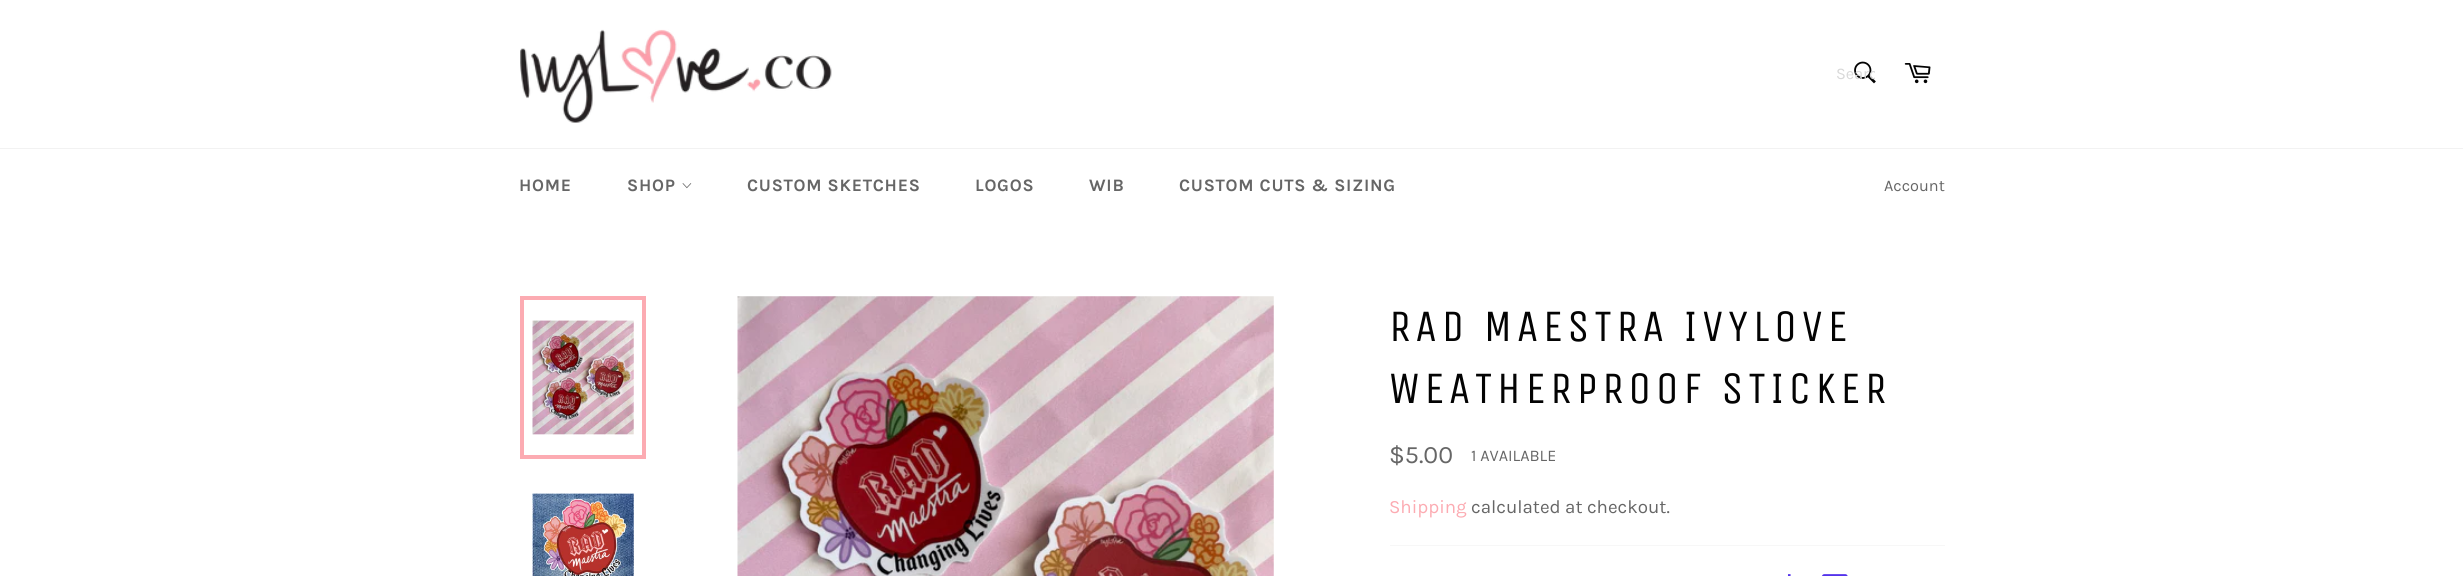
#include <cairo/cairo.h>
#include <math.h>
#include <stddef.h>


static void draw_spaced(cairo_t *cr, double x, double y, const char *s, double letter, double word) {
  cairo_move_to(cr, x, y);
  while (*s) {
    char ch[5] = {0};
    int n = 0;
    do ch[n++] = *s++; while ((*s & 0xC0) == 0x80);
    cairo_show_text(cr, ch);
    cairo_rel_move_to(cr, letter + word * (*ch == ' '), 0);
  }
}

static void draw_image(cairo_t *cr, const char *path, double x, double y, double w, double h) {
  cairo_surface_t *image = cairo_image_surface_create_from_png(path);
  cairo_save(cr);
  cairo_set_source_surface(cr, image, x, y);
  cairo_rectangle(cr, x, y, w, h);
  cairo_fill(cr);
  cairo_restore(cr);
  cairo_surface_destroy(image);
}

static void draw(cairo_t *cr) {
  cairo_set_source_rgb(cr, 1, 1, 1);
  cairo_paint(cr);
  draw_image(cr, "images/1.png", 520, 29, 312, 94);
  draw_image(cr, "images/2.png", 1854, 61, 22, 23);
  draw_image(cr, "images/3.png", 1904, 63, 27, 21);
  cairo_set_source_rgb(cr, 242 / 255.0, 242 / 255.0, 242 / 255.0);
  cairo_rectangle(cr, 0, 148, 2463, 1);
  cairo_fill(cr);
  draw_image(cr, "images/4.png", 682, 183, 10, 6);
  draw_image(cr, "images/5.png", 532, 320, 102, 115);
  cairo_rectangle(cr, 522, 298, 122, 159);
  cairo_set_source_rgb(cr, 252 / 255.0, 171 / 255.0, 178 / 255.0);
  cairo_set_line_width(cr, 4);
  cairo_stroke(cr);
  draw_image(cr, "images/6.png", 532, 493, 102, 83);
  draw_image(cr, "images/7.png", 737, 296, 537, 280);
  cairo_set_source_rgb(cr, 247 / 255.0, 247 / 255.0, 247 / 255.0);
  cairo_rectangle(cr, 1390, 545, 555, 1);
  cairo_fill(cr);
  draw_image(cr, "images/8.png", 1787, 574, 61, 2);
  cairo_save(cr);
  cairo_rectangle(cr, 1835, 65, 40, 19);
  cairo_clip(cr);
  cairo_select_font_face(cr, "Karla", CAIRO_FONT_SLANT_NORMAL, CAIRO_FONT_WEIGHT_NORMAL);
  cairo_set_font_size(cr, 16.25);
  cairo_set_source_rgb(cr, 216 / 255.0, 216 / 255.0, 216 / 255.0);
  cairo_move_to(cr, 1836, 79);
  cairo_show_text(cr, "Searc");
  cairo_restore(cr);
  cairo_select_font_face(cr, "Karla", CAIRO_FONT_SLANT_NORMAL, CAIRO_FONT_WEIGHT_BOLD);
  cairo_set_font_size(cr, 17.5);
  cairo_set_source_rgb(cr, 102 / 255.0, 102 / 255.0, 102 / 255.0);
  draw_spaced(cr, 519, 191, "HOME", 0.75, 0);
  draw_spaced(cr, 627, 191, "SHOP", 0.75, 0);
  draw_spaced(cr, 747, 191, "CUSTOM SKETCHES", 0.75, 0);
  draw_spaced(cr, 975, 191, "LOGOS", 0.75, 0);
  draw_spaced(cr, 1089, 191, "WIB", 0.75, 0);
  draw_spaced(cr, 1179, 191, "CUSTOM CUTS & SIZING", 0.75, 0);
  cairo_select_font_face(cr, "Karla", CAIRO_FONT_SLANT_NORMAL, CAIRO_FONT_WEIGHT_NORMAL);
  cairo_set_font_size(cr, 16.25);
  cairo_move_to(cr, 1884, 191);
  cairo_show_text(cr, "Account");
  cairo_select_font_face(cr, "Unica One", CAIRO_FONT_SLANT_NORMAL, CAIRO_FONT_WEIGHT_NORMAL);
  cairo_set_font_size(cr, 45);
  cairo_set_source_rgb(cr, 3 / 255.0, 3 / 255.0, 3 / 255.0);
  draw_spaced(cr, 1389, 341, "RAD MAESTRA IVYLOVE", 4.5, 0);
  draw_spaced(cr, 1389, 403, "WEATHERPROOF STICKER", 4.5, 0);
  cairo_select_font_face(cr, "Karla", CAIRO_FONT_SLANT_NORMAL, CAIRO_FONT_WEIGHT_NORMAL);
  cairo_set_font_size(cr, 25);
  cairo_set_source_rgb(cr, 102 / 255.0, 102 / 255.0, 102 / 255.0);
  cairo_move_to(cr, 1389, 463);
  cairo_show_text(cr, "$5.00");
  cairo_set_font_size(cr, 16.25);
  cairo_move_to(cr, 1471, 461);
  cairo_show_text(cr, "1 AVAILABLE");
  cairo_set_font_size(cr, 18.75);
  cairo_set_source_rgb(cr, 252 / 255.0, 171 / 255.0, 178 / 255.0);
  cairo_move_to(cr, 1389, 513);
  cairo_show_text(cr, "Shipping");
  cairo_set_source_rgb(cr, 102 / 255.0, 102 / 255.0, 102 / 255.0);
  cairo_move_to(cr, 1471, 513);
  cairo_show_text(cr, "calculated at checkout.");
}

int main(void) {
  cairo_surface_t *surface = cairo_image_surface_create(CAIRO_FORMAT_RGB24, 2463, 576);
  cairo_t *cr = cairo_create(surface);
  cairo_font_options_t *options = cairo_font_options_create();
  cairo_font_options_set_hint_metrics(options, CAIRO_HINT_METRICS_OFF);
  cairo_font_options_set_hint_style(options, CAIRO_HINT_STYLE_NONE);
  cairo_set_font_options(cr, options);
  cairo_set_miter_limit(cr, 4);
  draw(cr);
  cairo_surface_write_to_png(surface, "out.png");
  cairo_font_options_destroy(options);
  cairo_destroy(cr);
  cairo_surface_destroy(surface);
  return 0;
}
